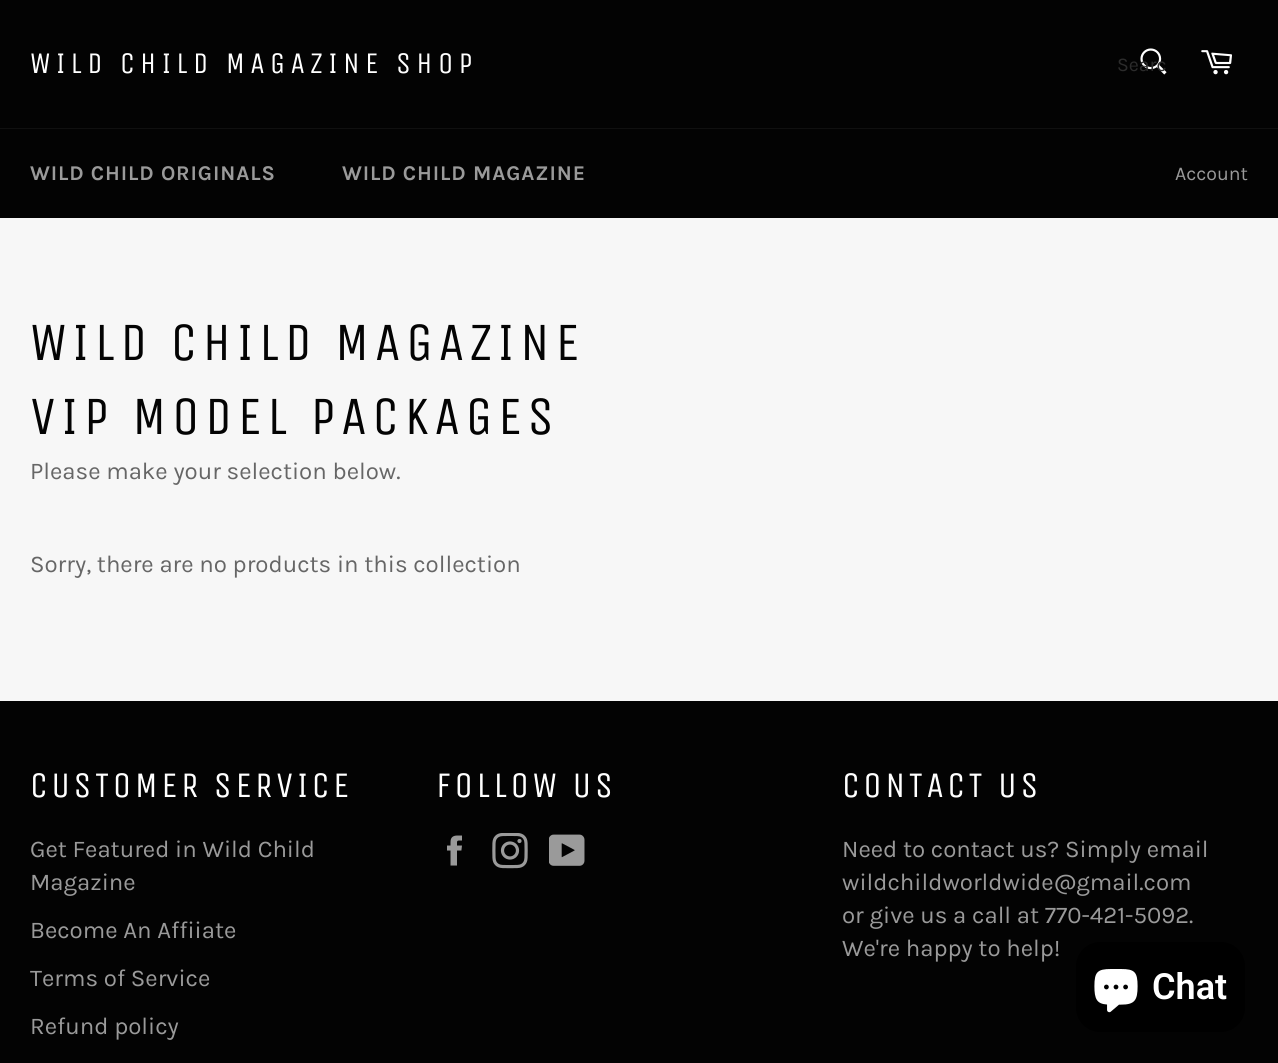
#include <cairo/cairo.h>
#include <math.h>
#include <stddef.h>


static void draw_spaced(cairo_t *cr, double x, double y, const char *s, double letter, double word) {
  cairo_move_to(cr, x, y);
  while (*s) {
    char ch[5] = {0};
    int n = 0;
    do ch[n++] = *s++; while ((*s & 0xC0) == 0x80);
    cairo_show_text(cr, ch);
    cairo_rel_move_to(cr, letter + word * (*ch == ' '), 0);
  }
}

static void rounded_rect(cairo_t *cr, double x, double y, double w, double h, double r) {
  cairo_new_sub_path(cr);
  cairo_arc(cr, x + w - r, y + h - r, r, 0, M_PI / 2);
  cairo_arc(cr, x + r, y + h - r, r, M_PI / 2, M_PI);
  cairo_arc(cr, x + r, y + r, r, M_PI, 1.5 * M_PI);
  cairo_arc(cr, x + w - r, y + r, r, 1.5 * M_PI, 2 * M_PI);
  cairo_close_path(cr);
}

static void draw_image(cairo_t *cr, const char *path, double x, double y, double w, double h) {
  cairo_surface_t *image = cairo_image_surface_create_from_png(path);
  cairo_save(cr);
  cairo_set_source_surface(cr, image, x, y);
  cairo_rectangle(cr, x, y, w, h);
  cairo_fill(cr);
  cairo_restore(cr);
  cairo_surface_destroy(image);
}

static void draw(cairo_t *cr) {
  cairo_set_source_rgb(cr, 247 / 255.0, 247 / 255.0, 247 / 255.0);
  cairo_paint(cr);
  cairo_set_source_rgb(cr, 3 / 255.0, 3 / 255.0, 3 / 255.0);
  cairo_rectangle(cr, 0, 0, 1278, 128);
  cairo_fill(cr);
  draw_image(cr, "images/1.png", 1140, 48, 27, 27);
  draw_image(cr, "images/2.png", 1201, 50, 31, 25);
  cairo_set_source_rgb(cr, 16 / 255.0, 16 / 255.0, 16 / 255.0);
  cairo_rectangle(cr, 0, 128, 1278, 1);
  cairo_fill(cr);
  cairo_set_source_rgb(cr, 3 / 255.0, 3 / 255.0, 3 / 255.0);
  cairo_rectangle(cr, 0, 129, 1278, 89);
  cairo_fill(cr);
  cairo_rectangle(cr, 0, 701, 1278, 362);
  cairo_fill(cr);
  draw_image(cr, "images/3.png", 447, 835, 15, 31);
  draw_image(cr, "images/4.png", 492, 833, 36, 36);
  draw_image(cr, "images/5.png", 549, 834, 36, 32);
  cairo_set_source_rgb(cr, 0, 0, 0);
  rounded_rect(cr, 1076, 942, 169, 90, 24);
  cairo_fill(cr);
  draw_image(cr, "images/6.png", 1094, 969, 44, 44);
  cairo_select_font_face(cr, "Unica One", CAIRO_FONT_SLANT_NORMAL, CAIRO_FONT_WEIGHT_NORMAL);
  cairo_set_font_size(cr, 30);
  cairo_set_source_rgb(cr, 1, 1, 1);
  draw_spaced(cr, 30, 73, "WILD CHILD MAGAZINE SHOP", 5.4, 0);
  cairo_select_font_face(cr, "Karla", CAIRO_FONT_SLANT_NORMAL, CAIRO_FONT_WEIGHT_NORMAL);
  cairo_set_font_size(cr, 19.5);
  cairo_set_source_rgb(cr, 44 / 255.0, 44 / 255.0, 44 / 255.0);
  cairo_move_to(cr, 1117, 71);
  cairo_show_text(cr, "Searc");
  cairo_select_font_face(cr, "Karla", CAIRO_FONT_SLANT_NORMAL, CAIRO_FONT_WEIGHT_BOLD);
  cairo_set_font_size(cr, 21);
  cairo_set_source_rgb(cr, 154 / 255.0, 154 / 255.0, 154 / 255.0);
  draw_spaced(cr, 30, 180, "WILD CHILD ORIGINALS", 0.9, 0);
  draw_spaced(cr, 342, 180, "WILD CHILD MAGAZINE", 0.9, 0);
  cairo_select_font_face(cr, "Karla", CAIRO_FONT_SLANT_NORMAL, CAIRO_FONT_WEIGHT_NORMAL);
  cairo_set_font_size(cr, 19.5);
  cairo_move_to(cr, 1175, 180);
  cairo_show_text(cr, "Account");
  cairo_select_font_face(cr, "Unica One", CAIRO_FONT_SLANT_NORMAL, CAIRO_FONT_WEIGHT_NORMAL);
  cairo_set_font_size(cr, 54);
  cairo_set_source_rgb(cr, 3 / 255.0, 3 / 255.0, 3 / 255.0);
  draw_spaced(cr, 30, 360, "WILD CHILD MAGAZINE", 5.4, 0);
  draw_spaced(cr, 30, 434, "VIP MODEL PACKAGES", 5.4, 0);
  cairo_select_font_face(cr, "Karla", CAIRO_FONT_SLANT_NORMAL, CAIRO_FONT_WEIGHT_NORMAL);
  cairo_set_font_size(cr, 24);
  cairo_set_source_rgb(cr, 102 / 255.0, 102 / 255.0, 102 / 255.0);
  cairo_move_to(cr, 30, 479);
  cairo_show_text(cr, "Please make your selection below.");
  cairo_move_to(cr, 30, 572);
  cairo_show_text(cr, "Sorry, there are no products in this collection");
  cairo_select_font_face(cr, "Unica One", CAIRO_FONT_SLANT_NORMAL, CAIRO_FONT_WEIGHT_NORMAL);
  cairo_set_font_size(cr, 36);
  cairo_set_source_rgb(cr, 1, 1, 1);
  draw_spaced(cr, 30, 797, "CUSTOMER SERVICE", 3.6, 0);
  cairo_select_font_face(cr, "Karla", CAIRO_FONT_SLANT_NORMAL, CAIRO_FONT_WEIGHT_NORMAL);
  cairo_set_font_size(cr, 24);
  cairo_set_source_rgb(cr, 154 / 255.0, 154 / 255.0, 154 / 255.0);
  cairo_move_to(cr, 30, 857);
  cairo_show_text(cr, "Get Featured in Wild Child");
  cairo_move_to(cr, 30, 890);
  cairo_show_text(cr, "Magazine");
  cairo_move_to(cr, 30, 938);
  cairo_show_text(cr, "Become An Affiiate");
  cairo_move_to(cr, 30, 986);
  cairo_show_text(cr, "Terms of Service");
  cairo_move_to(cr, 30, 1034);
  cairo_show_text(cr, "Refund policy");
  cairo_select_font_face(cr, "Unica One", CAIRO_FONT_SLANT_NORMAL, CAIRO_FONT_WEIGHT_NORMAL);
  cairo_set_font_size(cr, 36);
  cairo_set_source_rgb(cr, 1, 1, 1);
  draw_spaced(cr, 436, 797, "FOLLOW US", 3.6, 0);
  draw_spaced(cr, 842, 797, "CONTACT US", 3.6, 0);
  cairo_select_font_face(cr, "Karla", CAIRO_FONT_SLANT_NORMAL, CAIRO_FONT_WEIGHT_NORMAL);
  cairo_set_font_size(cr, 24);
  cairo_set_source_rgb(cr, 154 / 255.0, 154 / 255.0, 154 / 255.0);
  cairo_move_to(cr, 842, 857);
  cairo_show_text(cr, "Need to contact us? Simply email");
  cairo_move_to(cr, 842, 890);
  cairo_show_text(cr, "wildchildworldwide@gmail.com");
  cairo_move_to(cr, 842, 923);
  cairo_show_text(cr, "or give us a call at 770-421-5092.");
  cairo_move_to(cr, 842, 956);
  cairo_show_text(cr, "We're happy to help!");
  cairo_select_font_face(cr, "Roboto SemiBold", CAIRO_FONT_SLANT_NORMAL, CAIRO_FONT_WEIGHT_NORMAL);
  cairo_set_font_size(cr, 36);
  cairo_set_source_rgb(cr, 1, 1, 1);
  cairo_move_to(cr, 1152, 999);
  cairo_show_text(cr, "Chat");
}

int main(void) {
  cairo_surface_t *surface = cairo_image_surface_create(CAIRO_FORMAT_RGB24, 1278, 1063);
  cairo_t *cr = cairo_create(surface);
  cairo_font_options_t *options = cairo_font_options_create();
  cairo_font_options_set_hint_metrics(options, CAIRO_HINT_METRICS_OFF);
  cairo_font_options_set_hint_style(options, CAIRO_HINT_STYLE_NONE);
  cairo_set_font_options(cr, options);
  cairo_set_miter_limit(cr, 4);
  draw(cr);
  cairo_surface_write_to_png(surface, "out.png");
  cairo_font_options_destroy(options);
  cairo_destroy(cr);
  cairo_surface_destroy(surface);
  return 0;
}
